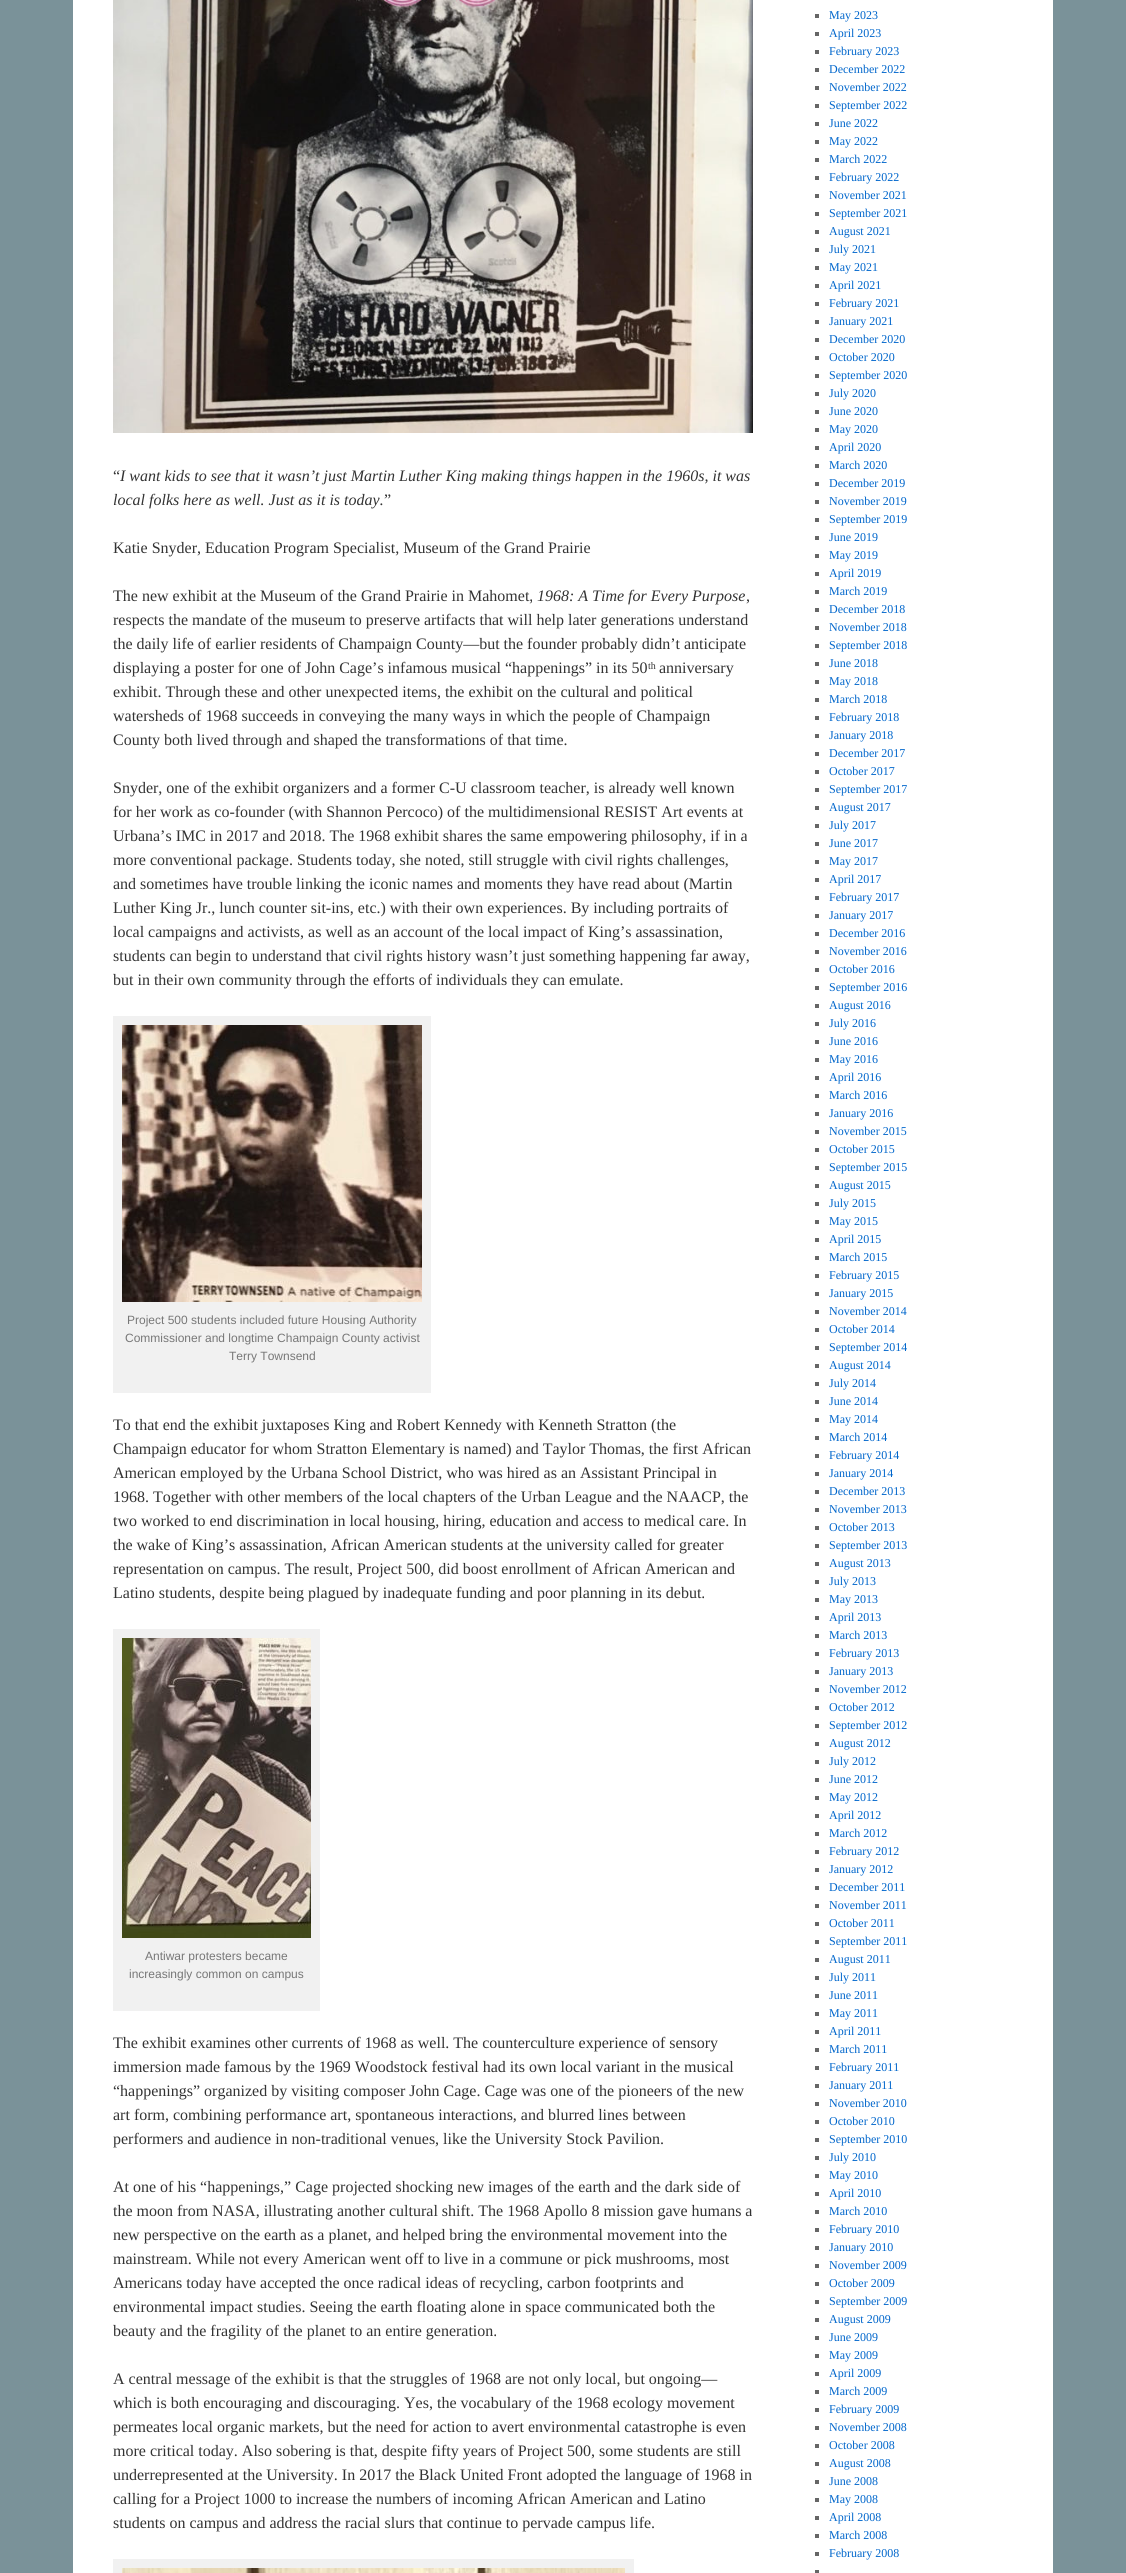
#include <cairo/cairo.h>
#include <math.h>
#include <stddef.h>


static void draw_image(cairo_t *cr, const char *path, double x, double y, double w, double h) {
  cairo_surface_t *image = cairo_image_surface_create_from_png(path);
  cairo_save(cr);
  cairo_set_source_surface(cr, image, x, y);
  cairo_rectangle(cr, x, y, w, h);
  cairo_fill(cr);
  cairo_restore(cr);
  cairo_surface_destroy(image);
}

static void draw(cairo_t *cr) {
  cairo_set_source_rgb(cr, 122 / 255.0, 146 / 255.0, 153 / 255.0);
  cairo_paint(cr);
  cairo_set_source_rgb(cr, 1, 1, 1);
  cairo_rectangle(cr, 73, 0, 980, 2573);
  cairo_fill(cr);
  draw_image(cr, "images/1.png", 113, 0, 640, 433);
  cairo_set_source_rgb(cr, 241 / 255.0, 241 / 255.0, 241 / 255.0);
  cairo_rectangle(cr, 113, 1016, 318, 377);
  cairo_fill(cr);
  draw_image(cr, "images/2.png", 122, 1025, 300, 277);
  cairo_rectangle(cr, 113, 1629, 207, 382);
  cairo_fill(cr);
  draw_image(cr, "images/3.png", 122, 1638, 189, 300);
  cairo_rectangle(cr, 113, 2559, 521, 14);
  cairo_fill(cr);
  draw_image(cr, "images/4.png", 122, 2568, 503, 5);
  cairo_set_source_rgb(cr, 102 / 255.0, 102 / 255.0, 102 / 255.0);
  cairo_rectangle(cr, 815, 14, 4, 4);
  cairo_fill(cr);
  cairo_rectangle(cr, 815, 32, 4, 4);
  cairo_fill(cr);
  cairo_rectangle(cr, 815, 50, 4, 4);
  cairo_fill(cr);
  cairo_rectangle(cr, 815, 68, 4, 4);
  cairo_fill(cr);
  cairo_rectangle(cr, 815, 86, 4, 4);
  cairo_fill(cr);
  cairo_rectangle(cr, 815, 104, 4, 4);
  cairo_fill(cr);
  cairo_rectangle(cr, 815, 122, 4, 4);
  cairo_fill(cr);
  cairo_rectangle(cr, 815, 140, 4, 4);
  cairo_fill(cr);
  cairo_rectangle(cr, 815, 158, 4, 4);
  cairo_fill(cr);
  cairo_rectangle(cr, 815, 176, 4, 4);
  cairo_fill(cr);
  cairo_rectangle(cr, 815, 194, 4, 4);
  cairo_fill(cr);
  cairo_rectangle(cr, 815, 212, 4, 4);
  cairo_fill(cr);
  cairo_rectangle(cr, 815, 230, 4, 4);
  cairo_fill(cr);
  cairo_rectangle(cr, 815, 248, 4, 4);
  cairo_fill(cr);
  cairo_rectangle(cr, 815, 266, 4, 4);
  cairo_fill(cr);
  cairo_rectangle(cr, 815, 284, 4, 4);
  cairo_fill(cr);
  cairo_rectangle(cr, 815, 302, 4, 4);
  cairo_fill(cr);
  cairo_rectangle(cr, 815, 320, 4, 4);
  cairo_fill(cr);
  cairo_rectangle(cr, 815, 338, 4, 4);
  cairo_fill(cr);
  cairo_rectangle(cr, 815, 356, 4, 4);
  cairo_fill(cr);
  cairo_rectangle(cr, 815, 374, 4, 4);
  cairo_fill(cr);
  cairo_rectangle(cr, 815, 392, 4, 4);
  cairo_fill(cr);
  cairo_rectangle(cr, 815, 410, 4, 4);
  cairo_fill(cr);
  cairo_rectangle(cr, 815, 428, 4, 4);
  cairo_fill(cr);
  cairo_rectangle(cr, 815, 446, 4, 4);
  cairo_fill(cr);
  cairo_rectangle(cr, 815, 464, 4, 4);
  cairo_fill(cr);
  cairo_rectangle(cr, 815, 482, 4, 4);
  cairo_fill(cr);
  cairo_rectangle(cr, 815, 500, 4, 4);
  cairo_fill(cr);
  cairo_rectangle(cr, 815, 518, 4, 4);
  cairo_fill(cr);
  cairo_rectangle(cr, 815, 536, 4, 4);
  cairo_fill(cr);
  cairo_rectangle(cr, 815, 554, 4, 4);
  cairo_fill(cr);
  cairo_rectangle(cr, 815, 572, 4, 4);
  cairo_fill(cr);
  cairo_rectangle(cr, 815, 590, 4, 4);
  cairo_fill(cr);
  cairo_rectangle(cr, 815, 608, 4, 4);
  cairo_fill(cr);
  cairo_rectangle(cr, 815, 626, 4, 4);
  cairo_fill(cr);
  cairo_rectangle(cr, 815, 644, 4, 4);
  cairo_fill(cr);
  cairo_rectangle(cr, 815, 662, 4, 4);
  cairo_fill(cr);
  cairo_rectangle(cr, 815, 680, 4, 4);
  cairo_fill(cr);
  cairo_rectangle(cr, 815, 698, 4, 4);
  cairo_fill(cr);
  cairo_rectangle(cr, 815, 716, 4, 4);
  cairo_fill(cr);
  cairo_rectangle(cr, 815, 734, 4, 4);
  cairo_fill(cr);
  cairo_rectangle(cr, 815, 752, 4, 4);
  cairo_fill(cr);
  cairo_rectangle(cr, 815, 770, 4, 4);
  cairo_fill(cr);
  cairo_rectangle(cr, 815, 788, 4, 4);
  cairo_fill(cr);
  cairo_rectangle(cr, 815, 806, 4, 4);
  cairo_fill(cr);
  cairo_rectangle(cr, 815, 824, 4, 4);
  cairo_fill(cr);
  cairo_rectangle(cr, 815, 842, 4, 4);
  cairo_fill(cr);
  cairo_rectangle(cr, 815, 860, 4, 4);
  cairo_fill(cr);
  cairo_rectangle(cr, 815, 878, 4, 4);
  cairo_fill(cr);
  cairo_rectangle(cr, 815, 896, 4, 4);
  cairo_fill(cr);
  cairo_rectangle(cr, 815, 914, 4, 4);
  cairo_fill(cr);
  cairo_rectangle(cr, 815, 932, 4, 4);
  cairo_fill(cr);
  cairo_rectangle(cr, 815, 950, 4, 4);
  cairo_fill(cr);
  cairo_rectangle(cr, 815, 968, 4, 4);
  cairo_fill(cr);
  cairo_rectangle(cr, 815, 986, 4, 4);
  cairo_fill(cr);
  cairo_rectangle(cr, 815, 1004, 4, 4);
  cairo_fill(cr);
  cairo_rectangle(cr, 815, 1022, 4, 4);
  cairo_fill(cr);
  cairo_rectangle(cr, 815, 1040, 4, 4);
  cairo_fill(cr);
  cairo_rectangle(cr, 815, 1058, 4, 4);
  cairo_fill(cr);
  cairo_rectangle(cr, 815, 1076, 4, 4);
  cairo_fill(cr);
  cairo_rectangle(cr, 815, 1094, 4, 4);
  cairo_fill(cr);
  cairo_rectangle(cr, 815, 1112, 4, 4);
  cairo_fill(cr);
  cairo_rectangle(cr, 815, 1130, 4, 4);
  cairo_fill(cr);
  cairo_rectangle(cr, 815, 1148, 4, 4);
  cairo_fill(cr);
  cairo_rectangle(cr, 815, 1166, 4, 4);
  cairo_fill(cr);
  cairo_rectangle(cr, 815, 1184, 4, 4);
  cairo_fill(cr);
  cairo_rectangle(cr, 815, 1202, 4, 4);
  cairo_fill(cr);
  cairo_rectangle(cr, 815, 1220, 4, 4);
  cairo_fill(cr);
  cairo_rectangle(cr, 815, 1238, 4, 4);
  cairo_fill(cr);
  cairo_rectangle(cr, 815, 1256, 4, 4);
  cairo_fill(cr);
  cairo_rectangle(cr, 815, 1274, 4, 4);
  cairo_fill(cr);
  cairo_rectangle(cr, 815, 1292, 4, 4);
  cairo_fill(cr);
  cairo_rectangle(cr, 815, 1310, 4, 4);
  cairo_fill(cr);
  cairo_rectangle(cr, 815, 1328, 4, 4);
  cairo_fill(cr);
  cairo_rectangle(cr, 815, 1346, 4, 4);
  cairo_fill(cr);
  cairo_rectangle(cr, 815, 1364, 4, 4);
  cairo_fill(cr);
  cairo_rectangle(cr, 815, 1382, 4, 4);
  cairo_fill(cr);
  cairo_rectangle(cr, 815, 1400, 4, 4);
  cairo_fill(cr);
  cairo_rectangle(cr, 815, 1418, 4, 4);
  cairo_fill(cr);
  cairo_rectangle(cr, 815, 1436, 4, 4);
  cairo_fill(cr);
  cairo_rectangle(cr, 815, 1454, 4, 4);
  cairo_fill(cr);
  cairo_rectangle(cr, 815, 1472, 4, 4);
  cairo_fill(cr);
  cairo_rectangle(cr, 815, 1490, 4, 4);
  cairo_fill(cr);
  cairo_rectangle(cr, 815, 1508, 4, 4);
  cairo_fill(cr);
  cairo_rectangle(cr, 815, 1526, 4, 4);
  cairo_fill(cr);
  cairo_rectangle(cr, 815, 1544, 4, 4);
  cairo_fill(cr);
  cairo_rectangle(cr, 815, 1562, 4, 4);
  cairo_fill(cr);
  cairo_rectangle(cr, 815, 1580, 4, 4);
  cairo_fill(cr);
  cairo_rectangle(cr, 815, 1598, 4, 4);
  cairo_fill(cr);
  cairo_rectangle(cr, 815, 1616, 4, 4);
  cairo_fill(cr);
  cairo_rectangle(cr, 815, 1634, 4, 4);
  cairo_fill(cr);
  cairo_rectangle(cr, 815, 1652, 4, 4);
  cairo_fill(cr);
  cairo_rectangle(cr, 815, 1670, 4, 4);
  cairo_fill(cr);
  cairo_rectangle(cr, 815, 1688, 4, 4);
  cairo_fill(cr);
  cairo_rectangle(cr, 815, 1706, 4, 4);
  cairo_fill(cr);
  cairo_rectangle(cr, 815, 1724, 4, 4);
  cairo_fill(cr);
  cairo_rectangle(cr, 815, 1742, 4, 4);
  cairo_fill(cr);
  cairo_rectangle(cr, 815, 1760, 4, 4);
  cairo_fill(cr);
  cairo_rectangle(cr, 815, 1778, 4, 4);
  cairo_fill(cr);
  cairo_rectangle(cr, 815, 1796, 4, 4);
  cairo_fill(cr);
  cairo_rectangle(cr, 815, 1814, 4, 4);
  cairo_fill(cr);
  cairo_rectangle(cr, 815, 1832, 4, 4);
  cairo_fill(cr);
  cairo_rectangle(cr, 815, 1850, 4, 4);
  cairo_fill(cr);
  cairo_rectangle(cr, 815, 1868, 4, 4);
  cairo_fill(cr);
  cairo_rectangle(cr, 815, 1886, 4, 4);
  cairo_fill(cr);
  cairo_rectangle(cr, 815, 1904, 4, 4);
  cairo_fill(cr);
  cairo_rectangle(cr, 815, 1922, 4, 4);
  cairo_fill(cr);
  cairo_rectangle(cr, 815, 1940, 4, 4);
  cairo_fill(cr);
  cairo_rectangle(cr, 815, 1958, 4, 4);
  cairo_fill(cr);
  cairo_rectangle(cr, 815, 1976, 4, 4);
  cairo_fill(cr);
  cairo_rectangle(cr, 815, 1994, 4, 4);
  cairo_fill(cr);
  cairo_rectangle(cr, 815, 2012, 4, 4);
  cairo_fill(cr);
  cairo_rectangle(cr, 815, 2030, 4, 4);
  cairo_fill(cr);
  cairo_rectangle(cr, 815, 2048, 4, 4);
  cairo_fill(cr);
  cairo_rectangle(cr, 815, 2066, 4, 4);
  cairo_fill(cr);
  cairo_rectangle(cr, 815, 2084, 4, 4);
  cairo_fill(cr);
  cairo_rectangle(cr, 815, 2102, 4, 4);
  cairo_fill(cr);
  cairo_rectangle(cr, 815, 2120, 4, 4);
  cairo_fill(cr);
  cairo_rectangle(cr, 815, 2138, 4, 4);
  cairo_fill(cr);
  cairo_rectangle(cr, 815, 2156, 4, 4);
  cairo_fill(cr);
  cairo_rectangle(cr, 815, 2174, 4, 4);
  cairo_fill(cr);
  cairo_rectangle(cr, 815, 2192, 4, 4);
  cairo_fill(cr);
  cairo_rectangle(cr, 815, 2210, 4, 4);
  cairo_fill(cr);
  cairo_rectangle(cr, 815, 2228, 4, 4);
  cairo_fill(cr);
  cairo_rectangle(cr, 815, 2246, 4, 4);
  cairo_fill(cr);
  cairo_rectangle(cr, 815, 2264, 4, 4);
  cairo_fill(cr);
  cairo_rectangle(cr, 815, 2282, 4, 4);
  cairo_fill(cr);
  cairo_rectangle(cr, 815, 2300, 4, 4);
  cairo_fill(cr);
  cairo_rectangle(cr, 815, 2318, 4, 4);
  cairo_fill(cr);
  cairo_rectangle(cr, 815, 2336, 4, 4);
  cairo_fill(cr);
  cairo_rectangle(cr, 815, 2354, 4, 4);
  cairo_fill(cr);
  cairo_rectangle(cr, 815, 2372, 4, 4);
  cairo_fill(cr);
  cairo_rectangle(cr, 815, 2390, 4, 4);
  cairo_fill(cr);
  cairo_rectangle(cr, 815, 2408, 4, 4);
  cairo_fill(cr);
  cairo_rectangle(cr, 815, 2426, 4, 4);
  cairo_fill(cr);
  cairo_rectangle(cr, 815, 2444, 4, 4);
  cairo_fill(cr);
  cairo_rectangle(cr, 815, 2462, 4, 4);
  cairo_fill(cr);
  cairo_rectangle(cr, 815, 2480, 4, 4);
  cairo_fill(cr);
  cairo_rectangle(cr, 815, 2498, 4, 4);
  cairo_fill(cr);
  cairo_rectangle(cr, 815, 2516, 4, 4);
  cairo_fill(cr);
  cairo_rectangle(cr, 815, 2534, 4, 4);
  cairo_fill(cr);
  cairo_rectangle(cr, 815, 2552, 4, 4);
  cairo_fill(cr);
  cairo_rectangle(cr, 815, 2570, 4, 3);
  cairo_fill(cr);
  cairo_select_font_face(cr, "Liberation Serif", CAIRO_FONT_SLANT_NORMAL, CAIRO_FONT_WEIGHT_NORMAL);
  cairo_set_font_size(cr, 16);
  cairo_set_source_rgb(cr, 51 / 255.0, 51 / 255.0, 51 / 255.0);
  cairo_move_to(cr, 113, 481);
  cairo_show_text(cr, "“");
  cairo_select_font_face(cr, "Liberation Serif", CAIRO_FONT_SLANT_ITALIC, CAIRO_FONT_WEIGHT_NORMAL);
  cairo_move_to(cr, 120, 481);
  cairo_show_text(cr, "I want kids to see that it wasn’t just Martin Luther King making things happen in the 1960s, it was");
  cairo_move_to(cr, 113, 505);
  cairo_show_text(cr, "local folks here as well. Just as it is today.");
  cairo_select_font_face(cr, "Liberation Serif", CAIRO_FONT_SLANT_NORMAL, CAIRO_FONT_WEIGHT_NORMAL);
  cairo_move_to(cr, 384, 505);
  cairo_show_text(cr, "”");
  cairo_move_to(cr, 113, 553);
  cairo_show_text(cr, "Katie Snyder, Education Program Specialist, Museum of the Grand Prairie");
  cairo_move_to(cr, 113, 601);
  cairo_show_text(cr, "The new exhibit at the Museum of the Grand Prairie in Mahomet,");
  cairo_select_font_face(cr, "Liberation Serif", CAIRO_FONT_SLANT_ITALIC, CAIRO_FONT_WEIGHT_NORMAL);
  cairo_move_to(cr, 537, 601);
  cairo_show_text(cr, "1968: A Time for Every Purpose");
  cairo_select_font_face(cr, "Liberation Serif", CAIRO_FONT_SLANT_NORMAL, CAIRO_FONT_WEIGHT_NORMAL);
  cairo_move_to(cr, 746, 601);
  cairo_show_text(cr, ",");
  cairo_move_to(cr, 113, 625);
  cairo_show_text(cr, "respects the mandate of the museum to preserve artifacts that will help later generations understand");
  cairo_move_to(cr, 113, 649);
  cairo_show_text(cr, "the daily life of earlier residents of Champaign County—but the founder probably didn’t anticipate");
  cairo_move_to(cr, 113, 673);
  cairo_show_text(cr, "displaying a poster for one of John Cage’s infamous musical “happenings” in its 50");
  cairo_set_font_size(cr, 10);
  cairo_move_to(cr, 648, 669);
  cairo_show_text(cr, "th");
  cairo_set_font_size(cr, 16);
  cairo_move_to(cr, 659, 673);
  cairo_show_text(cr, "anniversary");
  cairo_move_to(cr, 113, 697);
  cairo_show_text(cr, "exhibit. Through these and other unexpected items, the exhibit on the cultural and political");
  cairo_move_to(cr, 113, 721);
  cairo_show_text(cr, "watersheds of 1968 succeeds in conveying the many ways in which the people of Champaign");
  cairo_move_to(cr, 113, 745);
  cairo_show_text(cr, "County both lived through and shaped the transformations of that time.");
  cairo_move_to(cr, 113, 793);
  cairo_show_text(cr, "Snyder, one of the exhibit organizers and a former C-U classroom teacher, is already well known");
  cairo_move_to(cr, 113, 817);
  cairo_show_text(cr, "for her work as co-founder (with Shannon Percoco) of the multidimensional RESIST Art events at");
  cairo_move_to(cr, 113, 841);
  cairo_show_text(cr, "Urbana’s IMC in 2017 and 2018. The 1968 exhibit shares the same empowering philosophy, if in a");
  cairo_move_to(cr, 113, 865);
  cairo_show_text(cr, "more conventional package. Students today, she noted, still struggle with civil rights challenges,");
  cairo_move_to(cr, 113, 889);
  cairo_show_text(cr, "and sometimes have trouble linking the iconic names and moments they have read about (Martin");
  cairo_move_to(cr, 113, 913);
  cairo_show_text(cr, "Luther King Jr., lunch counter sit-ins, etc.) with their own experiences. By including portraits of");
  cairo_move_to(cr, 113, 937);
  cairo_show_text(cr, "local campaigns and activists, as well as an account of the local impact of King’s assassination,");
  cairo_move_to(cr, 113, 961);
  cairo_show_text(cr, "students can begin to understand that civil rights history wasn’t just something happening far away,");
  cairo_move_to(cr, 113, 985);
  cairo_show_text(cr, "but in their own community through the efforts of individuals they can emulate.");
  cairo_select_font_face(cr, "Liberation Sans", CAIRO_FONT_SLANT_NORMAL, CAIRO_FONT_WEIGHT_NORMAL);
  cairo_set_font_size(cr, 12);
  cairo_set_source_rgb(cr, 119 / 255.0, 119 / 255.0, 119 / 255.0);
  cairo_move_to(cr, 127, 1324);
  cairo_show_text(cr, "Project 500 students included future Housing Authority");
  cairo_move_to(cr, 125, 1342);
  cairo_show_text(cr, "Commissioner and longtime Champaign County activist");
  cairo_move_to(cr, 229, 1360);
  cairo_show_text(cr, "Terry Townsend");
  cairo_select_font_face(cr, "Liberation Serif", CAIRO_FONT_SLANT_NORMAL, CAIRO_FONT_WEIGHT_NORMAL);
  cairo_set_font_size(cr, 16);
  cairo_set_source_rgb(cr, 51 / 255.0, 51 / 255.0, 51 / 255.0);
  cairo_move_to(cr, 113, 1430);
  cairo_show_text(cr, "To that end the exhibit juxtaposes King and Robert Kennedy with Kenneth Stratton (the");
  cairo_move_to(cr, 113, 1454);
  cairo_show_text(cr, "Champaign educator for whom Stratton Elementary is named) and Taylor Thomas, the first African");
  cairo_move_to(cr, 113, 1478);
  cairo_show_text(cr, "American employed by the Urbana School District, who was hired as an Assistant Principal in");
  cairo_move_to(cr, 113, 1502);
  cairo_show_text(cr, "1968. Together with other members of the local chapters of the Urban League and the NAACP, the");
  cairo_move_to(cr, 113, 1526);
  cairo_show_text(cr, "two worked to end discrimination in local housing, hiring, education and access to medical care. In");
  cairo_move_to(cr, 113, 1550);
  cairo_show_text(cr, "the wake of King’s assassination, African American students at the university called for greater");
  cairo_move_to(cr, 113, 1574);
  cairo_show_text(cr, "representation on campus. The result, Project 500, did boost enrollment of African American and");
  cairo_move_to(cr, 113, 1598);
  cairo_show_text(cr, "Latino students, despite being plagued by inadequate funding and poor planning in its debut.");
  cairo_select_font_face(cr, "Liberation Sans", CAIRO_FONT_SLANT_NORMAL, CAIRO_FONT_WEIGHT_NORMAL);
  cairo_set_font_size(cr, 12);
  cairo_set_source_rgb(cr, 119 / 255.0, 119 / 255.0, 119 / 255.0);
  cairo_move_to(cr, 145, 1960);
  cairo_show_text(cr, "Antiwar protesters became");
  cairo_move_to(cr, 129, 1978);
  cairo_show_text(cr, "increasingly common on campus");
  cairo_select_font_face(cr, "Liberation Serif", CAIRO_FONT_SLANT_NORMAL, CAIRO_FONT_WEIGHT_NORMAL);
  cairo_set_font_size(cr, 16);
  cairo_set_source_rgb(cr, 51 / 255.0, 51 / 255.0, 51 / 255.0);
  cairo_move_to(cr, 113, 2048);
  cairo_show_text(cr, "The exhibit examines other currents of 1968 as well. The counterculture experience of sensory");
  cairo_move_to(cr, 113, 2072);
  cairo_show_text(cr, "immersion made famous by the 1969 Woodstock festival had its own local variant in the musical");
  cairo_move_to(cr, 113, 2096);
  cairo_show_text(cr, "“happenings” organized by visiting composer John Cage. Cage was one of the pioneers of the new");
  cairo_move_to(cr, 113, 2120);
  cairo_show_text(cr, "art form, combining performance art, spontaneous interactions, and blurred lines between");
  cairo_move_to(cr, 113, 2144);
  cairo_show_text(cr, "performers and audience in non-traditional venues, like the University Stock Pavilion.");
  cairo_move_to(cr, 113, 2192);
  cairo_show_text(cr, "At one of his “happenings,” Cage projected shocking new images of the earth and the dark side of");
  cairo_move_to(cr, 113, 2216);
  cairo_show_text(cr, "the moon from NASA, illustrating another cultural shift. The 1968 Apollo 8 mission gave humans a");
  cairo_move_to(cr, 113, 2240);
  cairo_show_text(cr, "new perspective on the earth as a planet, and helped bring the environmental movement into the");
  cairo_move_to(cr, 113, 2264);
  cairo_show_text(cr, "mainstream. While not every American went off to live in a commune or pick mushrooms, most");
  cairo_move_to(cr, 113, 2288);
  cairo_show_text(cr, "Americans today have accepted the once radical ideas of recycling, carbon footprints and");
  cairo_move_to(cr, 113, 2312);
  cairo_show_text(cr, "environmental impact studies. Seeing the earth floating alone in space communicated both the");
  cairo_move_to(cr, 113, 2336);
  cairo_show_text(cr, "beauty and the fragility of the planet to an entire generation.");
  cairo_move_to(cr, 113, 2384);
  cairo_show_text(cr, "A central message of the exhibit is that the struggles of 1968 are not only local, but ongoing—");
  cairo_move_to(cr, 113, 2408);
  cairo_show_text(cr, "which is both encouraging and discouraging. Yes, the vocabulary of the 1968 ecology movement");
  cairo_move_to(cr, 113, 2432);
  cairo_show_text(cr, "permeates local organic markets, but the need for action to avert environmental catastrophe is even");
  cairo_move_to(cr, 113, 2456);
  cairo_show_text(cr, "more critical today. Also sobering is that, despite fifty years of Project 500, some students are still");
  cairo_move_to(cr, 113, 2480);
  cairo_show_text(cr, "underrepresented at the University. In 2017 the Black United Front adopted the language of 1968 in");
  cairo_move_to(cr, 113, 2504);
  cairo_show_text(cr, "calling for a Project 1000 to increase the numbers of incoming African American and Latino");
  cairo_move_to(cr, 113, 2528);
  cairo_show_text(cr, "students on campus and address the racial slurs that continue to pervade campus life.");
  cairo_set_font_size(cr, 12);
  cairo_set_source_rgb(cr, 0, 102 / 255.0, 204 / 255.0);
  cairo_move_to(cr, 829, 19);
  cairo_show_text(cr, "May 2023");
  cairo_move_to(cr, 829, 37);
  cairo_show_text(cr, "April 2023");
  cairo_move_to(cr, 829, 55);
  cairo_show_text(cr, "February 2023");
  cairo_move_to(cr, 829, 73);
  cairo_show_text(cr, "December 2022");
  cairo_move_to(cr, 829, 91);
  cairo_show_text(cr, "November 2022");
  cairo_move_to(cr, 829, 109);
  cairo_show_text(cr, "September 2022");
  cairo_move_to(cr, 829, 127);
  cairo_show_text(cr, "June 2022");
  cairo_move_to(cr, 829, 145);
  cairo_show_text(cr, "May 2022");
  cairo_move_to(cr, 829, 163);
  cairo_show_text(cr, "March 2022");
  cairo_move_to(cr, 829, 181);
  cairo_show_text(cr, "February 2022");
  cairo_move_to(cr, 829, 199);
  cairo_show_text(cr, "November 2021");
  cairo_move_to(cr, 829, 217);
  cairo_show_text(cr, "September 2021");
  cairo_move_to(cr, 829, 235);
  cairo_show_text(cr, "August 2021");
  cairo_move_to(cr, 829, 253);
  cairo_show_text(cr, "July 2021");
  cairo_move_to(cr, 829, 271);
  cairo_show_text(cr, "May 2021");
  cairo_move_to(cr, 829, 289);
  cairo_show_text(cr, "April 2021");
  cairo_move_to(cr, 829, 307);
  cairo_show_text(cr, "February 2021");
  cairo_move_to(cr, 829, 325);
  cairo_show_text(cr, "January 2021");
  cairo_move_to(cr, 829, 343);
  cairo_show_text(cr, "December 2020");
  cairo_move_to(cr, 829, 361);
  cairo_show_text(cr, "October 2020");
  cairo_move_to(cr, 829, 379);
  cairo_show_text(cr, "September 2020");
  cairo_move_to(cr, 829, 397);
  cairo_show_text(cr, "July 2020");
  cairo_move_to(cr, 829, 415);
  cairo_show_text(cr, "June 2020");
  cairo_move_to(cr, 829, 433);
  cairo_show_text(cr, "May 2020");
  cairo_move_to(cr, 829, 451);
  cairo_show_text(cr, "April 2020");
  cairo_move_to(cr, 829, 469);
  cairo_show_text(cr, "March 2020");
  cairo_move_to(cr, 829, 487);
  cairo_show_text(cr, "December 2019");
  cairo_move_to(cr, 829, 505);
  cairo_show_text(cr, "November 2019");
  cairo_move_to(cr, 829, 523);
  cairo_show_text(cr, "September 2019");
  cairo_move_to(cr, 829, 541);
  cairo_show_text(cr, "June 2019");
  cairo_move_to(cr, 829, 559);
  cairo_show_text(cr, "May 2019");
  cairo_move_to(cr, 829, 577);
  cairo_show_text(cr, "April 2019");
  cairo_move_to(cr, 829, 595);
  cairo_show_text(cr, "March 2019");
  cairo_move_to(cr, 829, 613);
  cairo_show_text(cr, "December 2018");
  cairo_move_to(cr, 829, 631);
  cairo_show_text(cr, "November 2018");
  cairo_move_to(cr, 829, 649);
  cairo_show_text(cr, "September 2018");
  cairo_move_to(cr, 829, 667);
  cairo_show_text(cr, "June 2018");
  cairo_move_to(cr, 829, 685);
  cairo_show_text(cr, "May 2018");
  cairo_move_to(cr, 829, 703);
  cairo_show_text(cr, "March 2018");
  cairo_move_to(cr, 829, 721);
  cairo_show_text(cr, "February 2018");
  cairo_move_to(cr, 829, 739);
  cairo_show_text(cr, "January 2018");
  cairo_move_to(cr, 829, 757);
  cairo_show_text(cr, "December 2017");
  cairo_move_to(cr, 829, 775);
  cairo_show_text(cr, "October 2017");
  cairo_move_to(cr, 829, 793);
  cairo_show_text(cr, "September 2017");
  cairo_move_to(cr, 829, 811);
  cairo_show_text(cr, "August 2017");
  cairo_move_to(cr, 829, 829);
  cairo_show_text(cr, "July 2017");
  cairo_move_to(cr, 829, 847);
  cairo_show_text(cr, "June 2017");
  cairo_move_to(cr, 829, 865);
  cairo_show_text(cr, "May 2017");
  cairo_move_to(cr, 829, 883);
  cairo_show_text(cr, "April 2017");
  cairo_move_to(cr, 829, 901);
  cairo_show_text(cr, "February 2017");
  cairo_move_to(cr, 829, 919);
  cairo_show_text(cr, "January 2017");
  cairo_move_to(cr, 829, 937);
  cairo_show_text(cr, "December 2016");
  cairo_move_to(cr, 829, 955);
  cairo_show_text(cr, "November 2016");
  cairo_move_to(cr, 829, 973);
  cairo_show_text(cr, "October 2016");
  cairo_move_to(cr, 829, 991);
  cairo_show_text(cr, "September 2016");
  cairo_move_to(cr, 829, 1009);
  cairo_show_text(cr, "August 2016");
  cairo_move_to(cr, 829, 1027);
  cairo_show_text(cr, "July 2016");
  cairo_move_to(cr, 829, 1045);
  cairo_show_text(cr, "June 2016");
  cairo_move_to(cr, 829, 1063);
  cairo_show_text(cr, "May 2016");
  cairo_move_to(cr, 829, 1081);
  cairo_show_text(cr, "April 2016");
  cairo_move_to(cr, 829, 1099);
  cairo_show_text(cr, "March 2016");
  cairo_move_to(cr, 829, 1117);
  cairo_show_text(cr, "January 2016");
  cairo_move_to(cr, 829, 1135);
  cairo_show_text(cr, "November 2015");
  cairo_move_to(cr, 829, 1153);
  cairo_show_text(cr, "October 2015");
  cairo_move_to(cr, 829, 1171);
  cairo_show_text(cr, "September 2015");
  cairo_move_to(cr, 829, 1189);
  cairo_show_text(cr, "August 2015");
  cairo_move_to(cr, 829, 1207);
  cairo_show_text(cr, "July 2015");
  cairo_move_to(cr, 829, 1225);
  cairo_show_text(cr, "May 2015");
  cairo_move_to(cr, 829, 1243);
  cairo_show_text(cr, "April 2015");
  cairo_move_to(cr, 829, 1261);
  cairo_show_text(cr, "March 2015");
  cairo_move_to(cr, 829, 1279);
  cairo_show_text(cr, "February 2015");
  cairo_move_to(cr, 829, 1297);
  cairo_show_text(cr, "January 2015");
  cairo_move_to(cr, 829, 1315);
  cairo_show_text(cr, "November 2014");
  cairo_move_to(cr, 829, 1333);
  cairo_show_text(cr, "October 2014");
  cairo_move_to(cr, 829, 1351);
  cairo_show_text(cr, "September 2014");
  cairo_move_to(cr, 829, 1369);
  cairo_show_text(cr, "August 2014");
  cairo_move_to(cr, 829, 1387);
  cairo_show_text(cr, "July 2014");
  cairo_move_to(cr, 829, 1405);
  cairo_show_text(cr, "June 2014");
  cairo_move_to(cr, 829, 1423);
  cairo_show_text(cr, "May 2014");
  cairo_move_to(cr, 829, 1441);
  cairo_show_text(cr, "March 2014");
  cairo_move_to(cr, 829, 1459);
  cairo_show_text(cr, "February 2014");
  cairo_move_to(cr, 829, 1477);
  cairo_show_text(cr, "January 2014");
  cairo_move_to(cr, 829, 1495);
  cairo_show_text(cr, "December 2013");
  cairo_move_to(cr, 829, 1513);
  cairo_show_text(cr, "November 2013");
  cairo_move_to(cr, 829, 1531);
  cairo_show_text(cr, "October 2013");
  cairo_move_to(cr, 829, 1549);
  cairo_show_text(cr, "September 2013");
  cairo_move_to(cr, 829, 1567);
  cairo_show_text(cr, "August 2013");
  cairo_move_to(cr, 829, 1585);
  cairo_show_text(cr, "July 2013");
  cairo_move_to(cr, 829, 1603);
  cairo_show_text(cr, "May 2013");
  cairo_move_to(cr, 829, 1621);
  cairo_show_text(cr, "April 2013");
  cairo_move_to(cr, 829, 1639);
  cairo_show_text(cr, "March 2013");
  cairo_move_to(cr, 829, 1657);
  cairo_show_text(cr, "February 2013");
  cairo_move_to(cr, 829, 1675);
  cairo_show_text(cr, "January 2013");
  cairo_move_to(cr, 829, 1693);
  cairo_show_text(cr, "November 2012");
  cairo_move_to(cr, 829, 1711);
  cairo_show_text(cr, "October 2012");
  cairo_move_to(cr, 829, 1729);
  cairo_show_text(cr, "September 2012");
  cairo_move_to(cr, 829, 1747);
  cairo_show_text(cr, "August 2012");
  cairo_move_to(cr, 829, 1765);
  cairo_show_text(cr, "July 2012");
  cairo_move_to(cr, 829, 1783);
  cairo_show_text(cr, "June 2012");
  cairo_move_to(cr, 829, 1801);
  cairo_show_text(cr, "May 2012");
  cairo_move_to(cr, 829, 1819);
  cairo_show_text(cr, "April 2012");
  cairo_move_to(cr, 829, 1837);
  cairo_show_text(cr, "March 2012");
  cairo_move_to(cr, 829, 1855);
  cairo_show_text(cr, "February 2012");
  cairo_move_to(cr, 829, 1873);
  cairo_show_text(cr, "January 2012");
  cairo_move_to(cr, 829, 1891);
  cairo_show_text(cr, "December 2011");
  cairo_move_to(cr, 829, 1909);
  cairo_show_text(cr, "November 2011");
  cairo_move_to(cr, 829, 1927);
  cairo_show_text(cr, "October 2011");
  cairo_move_to(cr, 829, 1945);
  cairo_show_text(cr, "September 2011");
  cairo_move_to(cr, 829, 1963);
  cairo_show_text(cr, "August 2011");
  cairo_move_to(cr, 829, 1981);
  cairo_show_text(cr, "July 2011");
  cairo_move_to(cr, 829, 1999);
  cairo_show_text(cr, "June 2011");
  cairo_move_to(cr, 829, 2017);
  cairo_show_text(cr, "May 2011");
  cairo_move_to(cr, 829, 2035);
  cairo_show_text(cr, "April 2011");
  cairo_move_to(cr, 829, 2053);
  cairo_show_text(cr, "March 2011");
  cairo_move_to(cr, 829, 2071);
  cairo_show_text(cr, "February 2011");
  cairo_move_to(cr, 829, 2089);
  cairo_show_text(cr, "January 2011");
  cairo_move_to(cr, 829, 2107);
  cairo_show_text(cr, "November 2010");
  cairo_move_to(cr, 829, 2125);
  cairo_show_text(cr, "October 2010");
  cairo_move_to(cr, 829, 2143);
  cairo_show_text(cr, "September 2010");
  cairo_move_to(cr, 829, 2161);
  cairo_show_text(cr, "July 2010");
  cairo_move_to(cr, 829, 2179);
  cairo_show_text(cr, "May 2010");
  cairo_move_to(cr, 829, 2197);
  cairo_show_text(cr, "April 2010");
  cairo_move_to(cr, 829, 2215);
  cairo_show_text(cr, "March 2010");
  cairo_move_to(cr, 829, 2233);
  cairo_show_text(cr, "February 2010");
  cairo_move_to(cr, 829, 2251);
  cairo_show_text(cr, "January 2010");
  cairo_move_to(cr, 829, 2269);
  cairo_show_text(cr, "November 2009");
  cairo_move_to(cr, 829, 2287);
  cairo_show_text(cr, "October 2009");
  cairo_move_to(cr, 829, 2305);
  cairo_show_text(cr, "September 2009");
  cairo_move_to(cr, 829, 2323);
  cairo_show_text(cr, "August 2009");
  cairo_move_to(cr, 829, 2341);
  cairo_show_text(cr, "June 2009");
  cairo_move_to(cr, 829, 2359);
  cairo_show_text(cr, "May 2009");
  cairo_move_to(cr, 829, 2377);
  cairo_show_text(cr, "April 2009");
  cairo_move_to(cr, 829, 2395);
  cairo_show_text(cr, "March 2009");
  cairo_move_to(cr, 829, 2413);
  cairo_show_text(cr, "February 2009");
  cairo_move_to(cr, 829, 2431);
  cairo_show_text(cr, "November 2008");
  cairo_move_to(cr, 829, 2449);
  cairo_show_text(cr, "October 2008");
  cairo_move_to(cr, 829, 2467);
  cairo_show_text(cr, "August 2008");
  cairo_move_to(cr, 829, 2485);
  cairo_show_text(cr, "June 2008");
  cairo_move_to(cr, 829, 2503);
  cairo_show_text(cr, "May 2008");
  cairo_move_to(cr, 829, 2521);
  cairo_show_text(cr, "April 2008");
  cairo_move_to(cr, 829, 2539);
  cairo_show_text(cr, "March 2008");
  cairo_move_to(cr, 829, 2557);
  cairo_show_text(cr, "February 2008");
}

int main(void) {
  cairo_surface_t *surface = cairo_image_surface_create(CAIRO_FORMAT_RGB24, 1126, 2573);
  cairo_t *cr = cairo_create(surface);
  cairo_font_options_t *options = cairo_font_options_create();
  cairo_font_options_set_hint_metrics(options, CAIRO_HINT_METRICS_OFF);
  cairo_font_options_set_hint_style(options, CAIRO_HINT_STYLE_NONE);
  cairo_set_font_options(cr, options);
  cairo_set_miter_limit(cr, 4);
  draw(cr);
  cairo_surface_write_to_png(surface, "out.png");
  cairo_font_options_destroy(options);
  cairo_destroy(cr);
  cairo_surface_destroy(surface);
  return 0;
}
